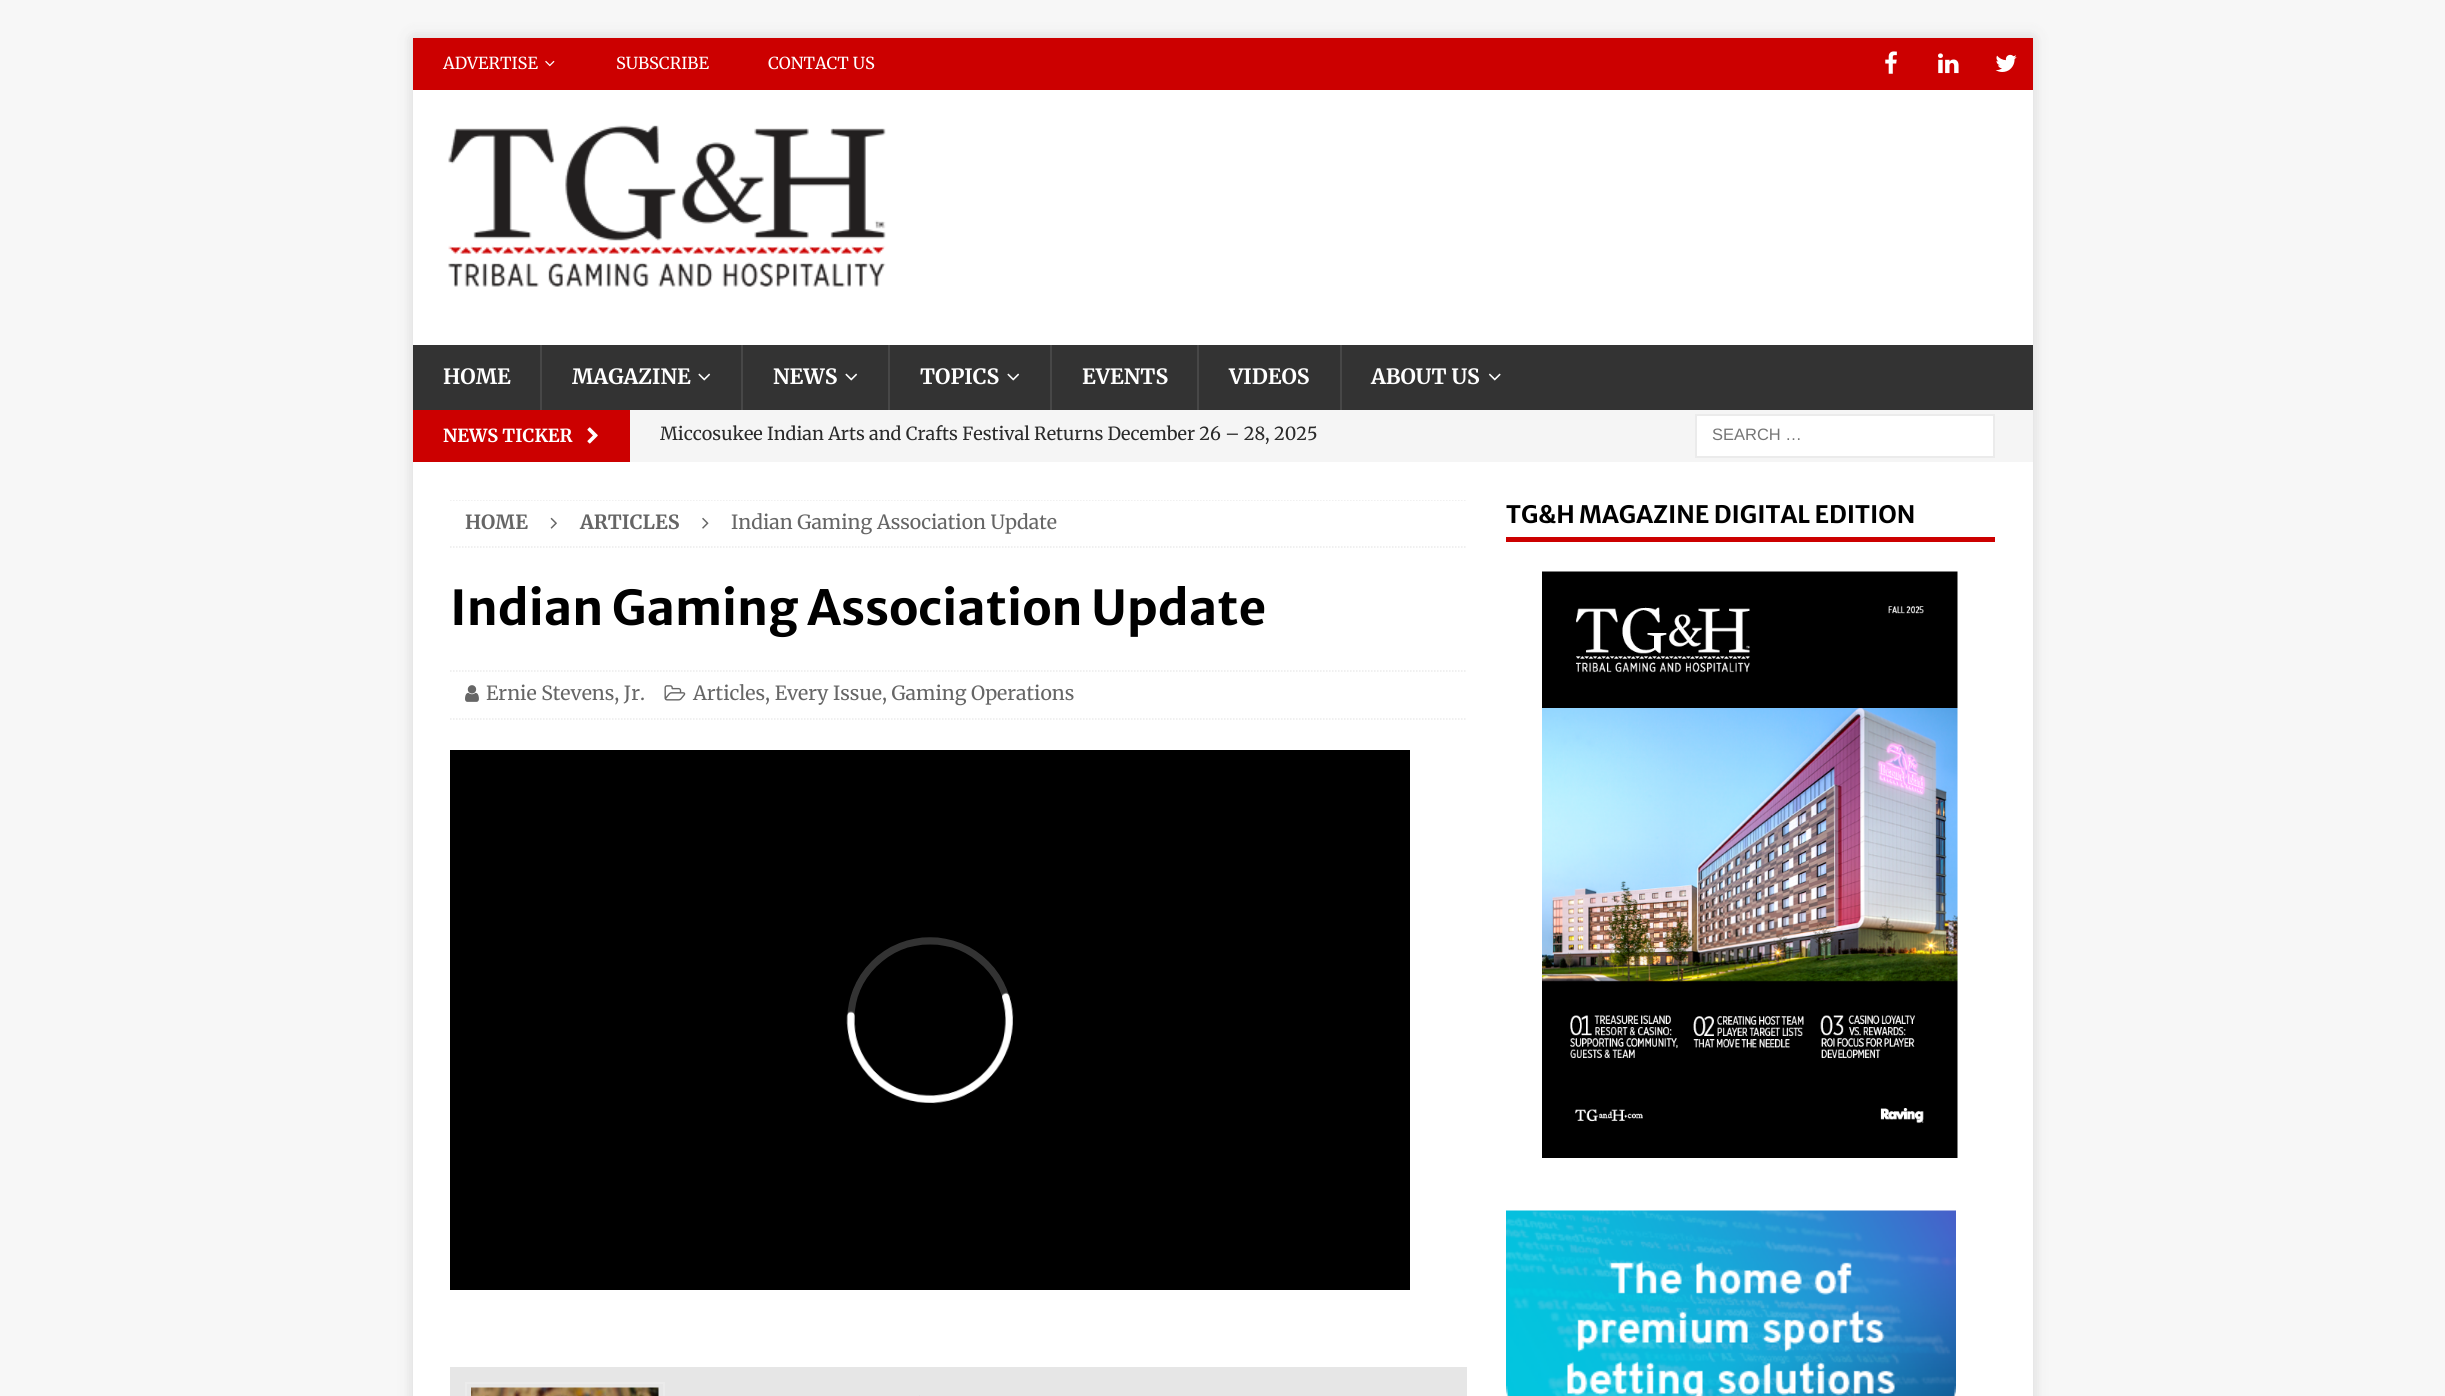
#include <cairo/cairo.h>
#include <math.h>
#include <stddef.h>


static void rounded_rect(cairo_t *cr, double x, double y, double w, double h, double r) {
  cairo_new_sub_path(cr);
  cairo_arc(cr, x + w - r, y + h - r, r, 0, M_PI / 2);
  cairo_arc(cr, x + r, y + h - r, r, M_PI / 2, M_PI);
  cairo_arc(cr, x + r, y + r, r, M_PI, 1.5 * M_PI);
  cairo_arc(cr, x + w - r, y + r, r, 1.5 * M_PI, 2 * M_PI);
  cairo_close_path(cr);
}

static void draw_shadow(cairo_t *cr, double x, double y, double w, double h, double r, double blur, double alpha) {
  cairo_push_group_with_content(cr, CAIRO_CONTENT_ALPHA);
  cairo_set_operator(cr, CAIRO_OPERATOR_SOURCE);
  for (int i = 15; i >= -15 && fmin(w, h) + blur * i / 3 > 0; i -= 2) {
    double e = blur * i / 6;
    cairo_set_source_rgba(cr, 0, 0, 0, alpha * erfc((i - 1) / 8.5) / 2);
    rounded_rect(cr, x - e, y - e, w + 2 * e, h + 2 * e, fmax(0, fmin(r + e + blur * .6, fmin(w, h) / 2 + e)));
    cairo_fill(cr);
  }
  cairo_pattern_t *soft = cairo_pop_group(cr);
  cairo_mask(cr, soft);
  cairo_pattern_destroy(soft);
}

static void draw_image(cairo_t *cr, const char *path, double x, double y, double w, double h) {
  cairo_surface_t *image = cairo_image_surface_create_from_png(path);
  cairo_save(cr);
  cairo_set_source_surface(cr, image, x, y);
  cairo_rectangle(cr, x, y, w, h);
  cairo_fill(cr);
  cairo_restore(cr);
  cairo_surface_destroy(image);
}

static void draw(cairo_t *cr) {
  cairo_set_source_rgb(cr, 247 / 255.0, 247 / 255.0, 247 / 255.0);
  cairo_paint(cr);
  cairo_set_source_rgb(cr, 50 / 255.0, 50 / 255.0, 50 / 255.0);
  draw_shadow(cr, 413, 38, 1620, 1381, 0, 7.5, 0.17);
  cairo_set_source_rgb(cr, 204 / 255.0, 0, 0);
  cairo_rectangle(cr, 413, 38, 1620, 52);
  cairo_fill(cr);
  draw_image(cr, "images/1.png", 545, 60, 10, 7);
  draw_image(cr, "images/2.png", 1885, 51, 12, 23);
  draw_image(cr, "images/3.png", 1938, 53, 21, 21);
  draw_image(cr, "images/4.png", 1995, 54, 22, 18);
  cairo_set_source_rgb(cr, 1, 1, 1);
  cairo_rectangle(cr, 413, 90, 1620, 255);
  cairo_fill(cr);
  draw_image(cr, "images/5.png", 448, 125, 438, 162);
  cairo_set_source_rgb(cr, 51 / 255.0, 51 / 255.0, 51 / 255.0);
  cairo_rectangle(cr, 413, 345, 1620, 65);
  cairo_fill(cr);
  cairo_set_source_rgb(cr, 71 / 255.0, 71 / 255.0, 71 / 255.0);
  cairo_rectangle(cr, 540, 345, 2, 65);
  cairo_fill(cr);
  draw_image(cr, "images/6.png", 698, 373, 13, 8);
  cairo_rectangle(cr, 741, 345, 2, 65);
  cairo_fill(cr);
  draw_image(cr, "images/6.png", 845, 373, 13, 8);
  cairo_rectangle(cr, 888, 345, 2, 65);
  cairo_fill(cr);
  draw_image(cr, "images/6.png", 1007, 373, 13, 8);
  cairo_rectangle(cr, 1050, 345, 2, 65);
  cairo_fill(cr);
  cairo_rectangle(cr, 1197, 345, 2, 65);
  cairo_fill(cr);
  cairo_rectangle(cr, 1340, 345, 2, 65);
  cairo_fill(cr);
  draw_image(cr, "images/7.png", 1488, 373, 13, 8);
  cairo_set_source_rgb(cr, 245 / 255.0, 245 / 255.0, 245 / 255.0);
  cairo_rectangle(cr, 630, 410, 1403, 52);
  cairo_fill(cr);
  cairo_set_source_rgb(cr, 204 / 255.0, 0, 0);
  cairo_rectangle(cr, 413, 410, 217, 52);
  cairo_fill(cr);
  draw_image(cr, "images/8.png", 587, 427, 11, 17);
  cairo_set_source_rgb(cr, 1, 1, 1);
  cairo_rectangle(cr, 1696, 415, 298, 42);
  cairo_fill_preserve(cr);
  cairo_set_source_rgb(cr, 235 / 255.0, 235 / 255.0, 235 / 255.0);
  cairo_stroke(cr);
  cairo_set_source_rgb(cr, 1, 1, 1);
  cairo_rectangle(cr, 413, 462, 1620, 934);
  cairo_fill(cr);
  cairo_save(cr);
  cairo_rectangle(cr, 450, 500, 1017, 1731);
  cairo_clip(cr);
  cairo_new_path(cr);
  cairo_move_to(cr, 450, 500);
  cairo_line_to(cr, 1467, 500);
  cairo_set_source_rgb(cr, 235 / 255.0, 235 / 255.0, 235 / 255.0);
  cairo_set_line_width(cr, 1.5);
  cairo_set_dash(cr, (double[]){1.5, 1.5}, 2, 0);
  cairo_stroke(cr);
  cairo_restore(cr);
  cairo_new_path(cr);
  cairo_move_to(cr, 450, 547);
  cairo_line_to(cr, 1467, 547);
  cairo_set_source_rgb(cr, 235 / 255.0, 235 / 255.0, 235 / 255.0);
  cairo_set_line_width(cr, 1.5);
  cairo_set_dash(cr, (double[]){1.5, 1.5}, 2, 0);
  cairo_stroke(cr);
  draw_image(cr, "images/9.png", 550, 517, 7, 12);
  draw_image(cr, "images/10.png", 702, 517, 7, 12);
  cairo_new_path(cr);
  cairo_move_to(cr, 450, 671);
  cairo_line_to(cr, 1467, 671);
  cairo_stroke(cr);
  cairo_new_path(cr);
  cairo_move_to(cr, 450, 719);
  cairo_line_to(cr, 1467, 719);
  cairo_stroke(cr);
  draw_image(cr, "images/11.png", 465, 685, 14, 17);
  draw_image(cr, "images/12.png", 664, 685, 22, 16);
  draw_image(cr, "images/13.png", 450, 750, 960, 540);
  cairo_set_source_rgb(cr, 230 / 255.0, 230 / 255.0, 230 / 255.0);
  cairo_rectangle(cr, 450, 1367, 1017, 29);
  cairo_fill(cr);
  cairo_rectangle(cr, 466, 1383, 198, 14);
  cairo_set_source_rgb(cr, 235 / 255.0, 235 / 255.0, 235 / 255.0);
  cairo_set_line_width(cr, 2);
  cairo_set_dash(cr, NULL, 0, 0);
  cairo_stroke(cr);
  draw_image(cr, "images/14.png", 471, 1387, 188, 9);
  cairo_set_source_rgb(cr, 225 / 255.0, 225 / 255.0, 225 / 255.0);
  cairo_rectangle(cr, 919, 1395, 1, 1);
  cairo_fill(cr);
  cairo_set_source_rgb(cr, 204 / 255.0, 0, 0);
  cairo_rectangle(cr, 1506, 537, 489, 5);
  cairo_fill(cr);
  draw_image(cr, "images/15.png", 1542, 571, 416, 587);
  draw_image(cr, "images/16.png", 1506, 1210, 450, 186);
  cairo_select_font_face(cr, "Merriweather", CAIRO_FONT_SLANT_NORMAL, CAIRO_FONT_WEIGHT_NORMAL);
  cairo_set_font_size(cr, 16.5);
  cairo_set_source_rgb(cr, 1, 1, 1);
  cairo_move_to(cr, 443, 69);
  cairo_show_text(cr, "ADVERTISE");
  cairo_move_to(cr, 616, 69);
  cairo_show_text(cr, "SUBSCRIBE");
  cairo_move_to(cr, 768, 69);
  cairo_show_text(cr, "CONTACT US");
  cairo_select_font_face(cr, "Merriweather", CAIRO_FONT_SLANT_NORMAL, CAIRO_FONT_WEIGHT_BOLD);
  cairo_set_font_size(cr, 21);
  cairo_move_to(cr, 443, 384);
  cairo_show_text(cr, "HOME");
  cairo_move_to(cr, 572, 384);
  cairo_show_text(cr, "MAGAZINE");
  cairo_move_to(cr, 773, 384);
  cairo_show_text(cr, "NEWS");
  cairo_move_to(cr, 920, 384);
  cairo_show_text(cr, "TOPICS");
  cairo_move_to(cr, 1082, 384);
  cairo_show_text(cr, "EVENTS");
  cairo_move_to(cr, 1229, 384);
  cairo_show_text(cr, "VIDEOS");
  cairo_move_to(cr, 1371, 384);
  cairo_show_text(cr, "ABOUT US");
  cairo_set_font_size(cr, 18);
  cairo_move_to(cr, 443, 442);
  cairo_show_text(cr, "NEWS TICKER");
  cairo_select_font_face(cr, "Merriweather", CAIRO_FONT_SLANT_NORMAL, CAIRO_FONT_WEIGHT_NORMAL);
  cairo_set_source_rgb(cr, 42 / 255.0, 42 / 255.0, 42 / 255.0);
  cairo_move_to(cr, 660, 440);
  cairo_show_text(cr, "Miccosukee Indian Arts and Crafts Festival Returns December 26 – 28, 2025");
  cairo_select_font_face(cr, "Liberation Sans", CAIRO_FONT_SLANT_NORMAL, CAIRO_FONT_WEIGHT_NORMAL);
  cairo_set_font_size(cr, 16.5);
  cairo_set_source_rgb(cr, 117 / 255.0, 117 / 255.0, 117 / 255.0);
  cairo_move_to(cr, 1712, 440);
  cairo_show_text(cr, "SEARCH …");
  cairo_select_font_face(cr, "Merriweather", CAIRO_FONT_SLANT_NORMAL, CAIRO_FONT_WEIGHT_BOLD);
  cairo_set_font_size(cr, 19.5);
  cairo_set_source_rgb(cr, 102 / 255.0, 102 / 255.0, 102 / 255.0);
  cairo_move_to(cr, 465, 529);
  cairo_show_text(cr, "HOME");
  cairo_move_to(cr, 580, 529);
  cairo_show_text(cr, "ARTICLES");
  cairo_select_font_face(cr, "Merriweather", CAIRO_FONT_SLANT_NORMAL, CAIRO_FONT_WEIGHT_NORMAL);
  cairo_move_to(cr, 731, 529);
  cairo_show_text(cr, "Indian Gaming Association Update");
  cairo_select_font_face(cr, "Merriweather Sans", CAIRO_FONT_SLANT_NORMAL, CAIRO_FONT_WEIGHT_BOLD);
  cairo_set_font_size(cr, 48);
  cairo_set_source_rgb(cr, 0, 0, 0);
  cairo_move_to(cr, 450, 625);
  cairo_show_text(cr, "Indian Gaming Association Update");
  cairo_select_font_face(cr, "Merriweather", CAIRO_FONT_SLANT_NORMAL, CAIRO_FONT_WEIGHT_NORMAL);
  cairo_set_font_size(cr, 19.5);
  cairo_set_source_rgb(cr, 102 / 255.0, 102 / 255.0, 102 / 255.0);
  cairo_move_to(cr, 486, 700);
  cairo_show_text(cr, "Ernie Stevens, Jr.");
  cairo_move_to(cr, 693, 700);
  cairo_show_text(cr, "Articles, Every Issue, Gaming Operations");
  cairo_select_font_face(cr, "Merriweather Sans", CAIRO_FONT_SLANT_NORMAL, CAIRO_FONT_WEIGHT_BOLD);
  cairo_set_font_size(cr, 24);
  cairo_set_source_rgb(cr, 0, 0, 0);
  cairo_move_to(cr, 1506, 523);
  cairo_show_text(cr, "TG&H MAGAZINE DIGITAL EDITION");
}

int main(void) {
  cairo_surface_t *surface = cairo_image_surface_create(CAIRO_FORMAT_RGB24, 2445, 1396);
  cairo_t *cr = cairo_create(surface);
  cairo_font_options_t *options = cairo_font_options_create();
  cairo_font_options_set_hint_metrics(options, CAIRO_HINT_METRICS_OFF);
  cairo_font_options_set_hint_style(options, CAIRO_HINT_STYLE_NONE);
  cairo_set_font_options(cr, options);
  cairo_set_miter_limit(cr, 4);
  draw(cr);
  cairo_surface_write_to_png(surface, "out.png");
  cairo_font_options_destroy(options);
  cairo_destroy(cr);
  cairo_surface_destroy(surface);
  return 0;
}
